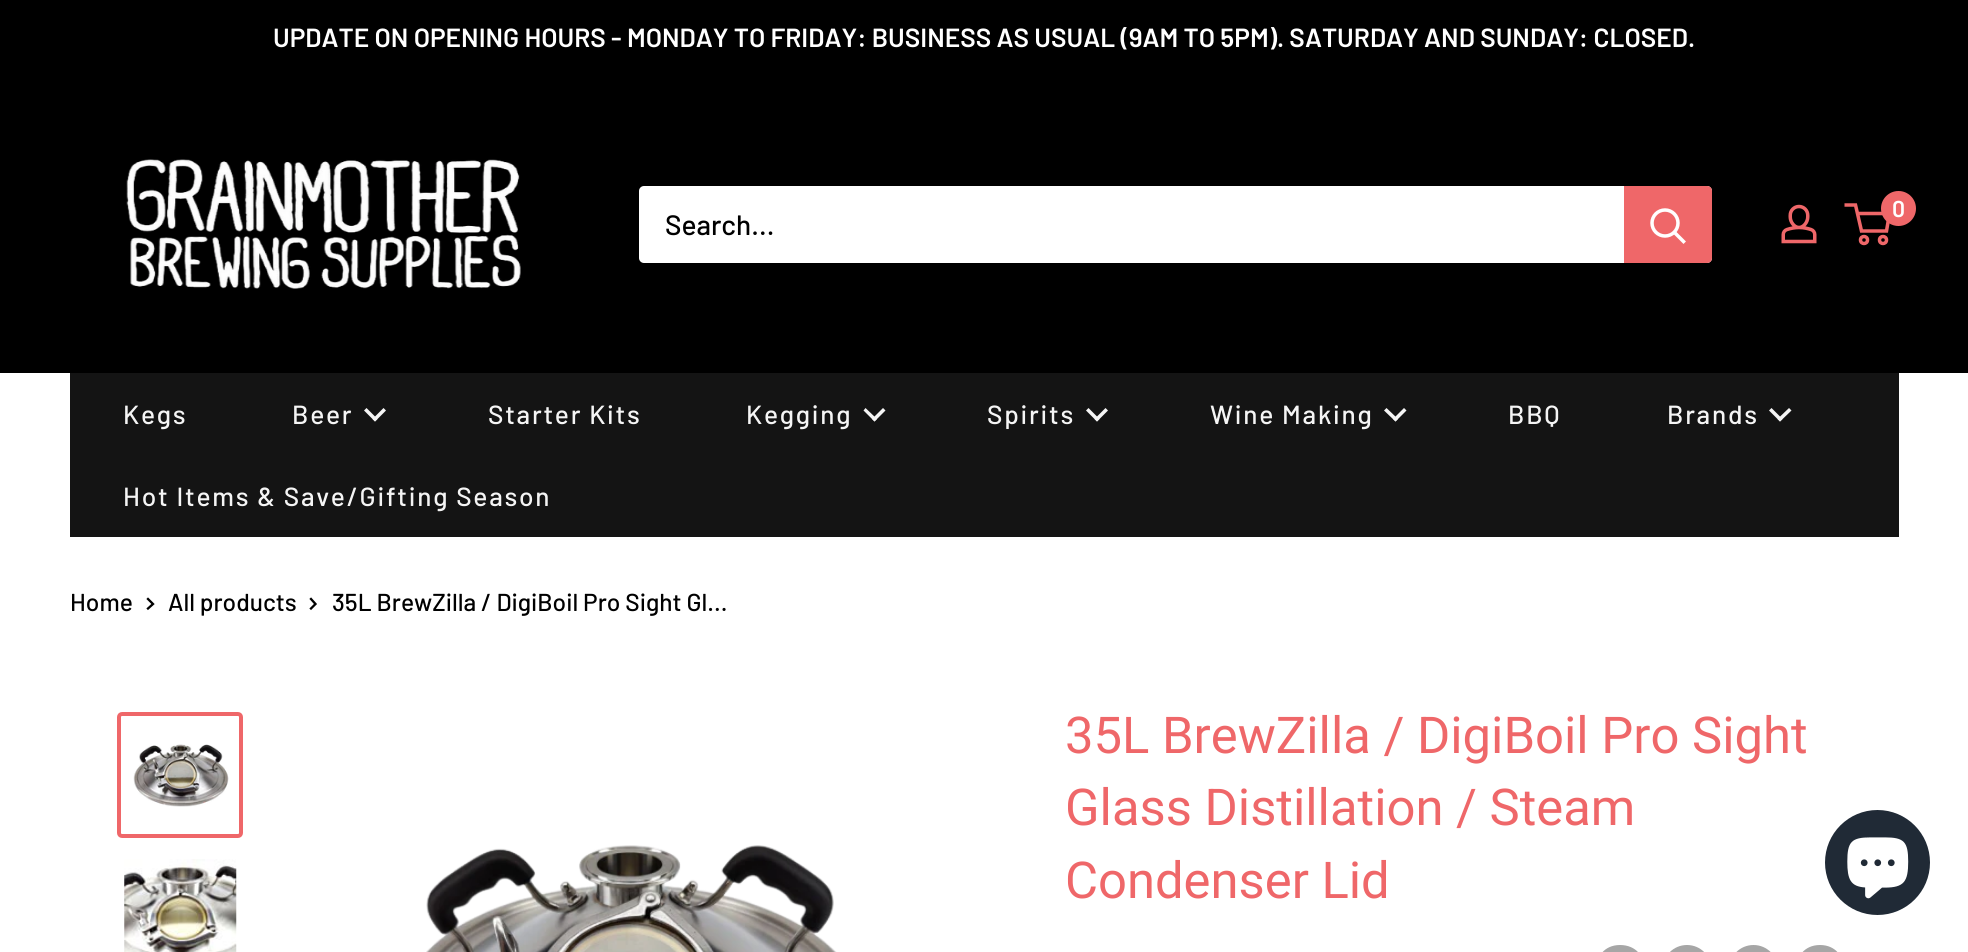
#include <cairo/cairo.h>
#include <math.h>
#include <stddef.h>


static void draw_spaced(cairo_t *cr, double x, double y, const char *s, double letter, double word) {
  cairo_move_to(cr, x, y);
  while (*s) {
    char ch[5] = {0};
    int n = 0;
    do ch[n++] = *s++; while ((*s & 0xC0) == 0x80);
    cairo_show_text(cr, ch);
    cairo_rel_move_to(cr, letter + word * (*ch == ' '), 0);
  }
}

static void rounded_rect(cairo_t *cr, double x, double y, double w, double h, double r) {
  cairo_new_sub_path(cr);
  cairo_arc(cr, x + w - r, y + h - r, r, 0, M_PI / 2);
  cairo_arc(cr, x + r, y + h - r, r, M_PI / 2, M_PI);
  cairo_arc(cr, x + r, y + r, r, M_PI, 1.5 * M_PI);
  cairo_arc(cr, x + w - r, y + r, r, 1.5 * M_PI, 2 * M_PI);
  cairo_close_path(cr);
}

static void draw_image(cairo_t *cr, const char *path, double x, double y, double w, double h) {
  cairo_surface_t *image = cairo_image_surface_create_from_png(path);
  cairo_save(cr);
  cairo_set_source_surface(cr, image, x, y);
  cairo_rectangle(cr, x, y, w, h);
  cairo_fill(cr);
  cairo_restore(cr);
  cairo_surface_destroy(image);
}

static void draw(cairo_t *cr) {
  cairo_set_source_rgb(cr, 1, 1, 1);
  cairo_paint(cr);
  cairo_set_source_rgb(cr, 0, 0, 0);
  cairo_rectangle(cr, 0, 0, 1968, 373);
  cairo_fill(cr);
  draw_image(cr, "images/1.png", 126, 159, 395, 130);
  draw_image(cr, "images/2.png", 1781, 204, 36, 40);
  cairo_arc(cr, 1864, 240, 3.5, 0, 2 * M_PI);
  cairo_set_source_rgb(cr, 239 / 255.0, 103 / 255.0, 105 / 255.0);
  cairo_set_line_width(cr, 3.5);
  cairo_stroke(cr);
  cairo_arc(cr, 1883, 240, 3.5, 0, 2 * M_PI);
  cairo_stroke(cr);
  cairo_new_path(cr);
  cairo_move_to(cr, 1857.5, 213.5);
  cairo_line_to(cr, 1889.5, 213.5);
  cairo_line_to(cr, 1886.5, 231);
  cairo_line_to(cr, 1861.5, 231);
  cairo_line_to(cr, 1855.5, 205);
  cairo_line_to(cr, 1844.5, 205);
  cairo_stroke(cr);
  cairo_arc(cr, 1898.5, 208.5, 17.5, 0, 2 * M_PI);
  cairo_fill(cr);
  cairo_set_source_rgb(cr, 1, 1, 1);
  rounded_rect(cr, 639, 186, 1073, 77, 5);
  cairo_fill(cr);
  cairo_set_source_rgb(cr, 239 / 255.0, 103 / 255.0, 105 / 255.0);
  cairo_new_path(cr);
  cairo_move_to(cr, 1624, 186);
  cairo_line_to(cr, 1707, 186);
  cairo_curve_to(cr, 1710, 186, 1712, 188, 1712, 191);
  cairo_line_to(cr, 1712, 258);
  cairo_curve_to(cr, 1712, 261, 1710, 263, 1707, 263);
  cairo_line_to(cr, 1624, 263);
  cairo_close_path(cr);
  cairo_fill(cr);
  cairo_new_path(cr);
  cairo_move_to(cr, 1683.5, 241.5);
  cairo_line_to(cr, 1675, 233);
  cairo_set_source_rgb(cr, 1, 1, 1);
  cairo_set_line_cap(cr, CAIRO_LINE_CAP_SQUARE);
  cairo_stroke(cr);
  cairo_arc(cr, 1665, 223, 13, 0, 2 * M_PI);
  cairo_set_line_cap(cr, CAIRO_LINE_CAP_BUTT);
  cairo_stroke(cr);
  cairo_set_source_rgb(cr, 20 / 255.0, 20 / 255.0, 20 / 255.0);
  cairo_rectangle(cr, 70, 373, 1829, 164);
  cairo_fill(cr);
  cairo_set_source_rgb(cr, 245 / 255.0, 245 / 255.0, 245 / 255.0);
  cairo_new_path(cr);
  cairo_move_to(cr, 375, 421.5);
  cairo_line_to(cr, 364, 410.5);
  cairo_line_to(cr, 366.5, 408);
  cairo_line_to(cr, 377.5, 419);
  cairo_close_path(cr);
  cairo_fill(cr);
  cairo_new_path(cr);
  cairo_move_to(cr, 375, 421.5);
  cairo_line_to(cr, 372.5, 419);
  cairo_line_to(cr, 383.5, 408);
  cairo_line_to(cr, 386, 410.5);
  cairo_close_path(cr);
  cairo_fill(cr);
  cairo_new_path(cr);
  cairo_move_to(cr, 874.5, 421.5);
  cairo_line_to(cr, 863.5, 410.5);
  cairo_line_to(cr, 865.5, 408);
  cairo_line_to(cr, 877, 419);
  cairo_close_path(cr);
  cairo_fill(cr);
  cairo_new_path(cr);
  cairo_move_to(cr, 874.5, 421.5);
  cairo_line_to(cr, 872, 419);
  cairo_line_to(cr, 883, 408);
  cairo_line_to(cr, 885.5, 410.5);
  cairo_close_path(cr);
  cairo_fill(cr);
  cairo_new_path(cr);
  cairo_move_to(cr, 1097, 421.5);
  cairo_line_to(cr, 1086, 410.5);
  cairo_line_to(cr, 1088.5, 408);
  cairo_line_to(cr, 1099.5, 419);
  cairo_close_path(cr);
  cairo_fill(cr);
  cairo_new_path(cr);
  cairo_move_to(cr, 1097, 421.5);
  cairo_line_to(cr, 1094.5, 419);
  cairo_line_to(cr, 1105.5, 408);
  cairo_line_to(cr, 1108, 410.5);
  cairo_close_path(cr);
  cairo_fill(cr);
  cairo_new_path(cr);
  cairo_move_to(cr, 1395.5, 421.5);
  cairo_line_to(cr, 1384, 410.5);
  cairo_line_to(cr, 1386.5, 408);
  cairo_line_to(cr, 1398, 419);
  cairo_close_path(cr);
  cairo_fill(cr);
  cairo_new_path(cr);
  cairo_move_to(cr, 1395.5, 421.5);
  cairo_line_to(cr, 1393, 419);
  cairo_line_to(cr, 1404, 408);
  cairo_line_to(cr, 1406.5, 410.5);
  cairo_close_path(cr);
  cairo_fill(cr);
  cairo_new_path(cr);
  cairo_move_to(cr, 1780, 421.5);
  cairo_line_to(cr, 1769, 410.5);
  cairo_line_to(cr, 1771.5, 408);
  cairo_line_to(cr, 1782.5, 419);
  cairo_close_path(cr);
  cairo_fill(cr);
  cairo_new_path(cr);
  cairo_move_to(cr, 1780, 421.5);
  cairo_line_to(cr, 1777.5, 419);
  cairo_line_to(cr, 1789, 408);
  cairo_line_to(cr, 1791.5, 410.5);
  cairo_close_path(cr);
  cairo_fill(cr);
  cairo_new_path(cr);
  cairo_move_to(cr, 148, 599);
  cairo_line_to(cr, 153, 604);
  cairo_line_to(cr, 148, 608.5);
  cairo_set_source_rgb(cr, 0, 0, 0);
  cairo_set_line_width(cr, 2.3);
  cairo_set_line_cap(cr, CAIRO_LINE_CAP_SQUARE);
  cairo_stroke(cr);
  cairo_new_path(cr);
  cairo_move_to(cr, 311, 599);
  cairo_line_to(cr, 315.5, 604);
  cairo_line_to(cr, 311, 608.5);
  cairo_stroke(cr);
  rounded_rect(cr, 119, 714, 122, 122, 3);
  cairo_set_source_rgb(cr, 239 / 255.0, 103 / 255.0, 105 / 255.0);
  cairo_set_line_width(cr, 4);
  cairo_set_line_cap(cr, CAIRO_LINE_CAP_BUTT);
  cairo_stroke(cr);
  draw_image(cr, "images/3.png", 133, 744, 96, 63);
  draw_image(cr, "images/4.png", 124, 859, 113, 93);
  draw_image(cr, "images/5.png", 426, 845, 411, 107);
  cairo_set_source_rgb(cr, 166 / 255.0, 166 / 255.0, 166 / 255.0);
  cairo_set_fill_rule(cr, CAIRO_FILL_RULE_EVEN_ODD);
  cairo_new_path(cr);
  cairo_move_to(cr, 1620, 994);
  cairo_curve_to(cr, 1588, 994, 1588, 945, 1620, 945);
  cairo_curve_to(cr, 1653, 945, 1653, 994, 1620, 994);
  cairo_close_path(cr);
  cairo_move_to(cr, 1626, 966);
  cairo_line_to(cr, 1622, 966);
  cairo_curve_to(cr, 1622, 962, 1622, 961, 1626, 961);
  cairo_line_to(cr, 1626, 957);
  cairo_curve_to(cr, 1618, 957, 1617, 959, 1617, 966);
  cairo_line_to(cr, 1615, 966);
  cairo_line_to(cr, 1615, 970);
  cairo_line_to(cr, 1617, 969);
  cairo_line_to(cr, 1617, 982);
  cairo_line_to(cr, 1622, 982);
  cairo_line_to(cr, 1622, 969);
  cairo_line_to(cr, 1626, 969);
  cairo_close_path(cr);
  cairo_fill(cr);
  draw_image(cr, "images/6.png", 1670, 945, 34, 7);
  draw_image(cr, "images/7.png", 1736, 945, 35, 7);
  cairo_set_fill_rule(cr, CAIRO_FILL_RULE_WINDING);
  cairo_new_path(cr);
  cairo_move_to(cr, 1820, 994);
  cairo_curve_to(cr, 1788, 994, 1788, 945, 1820, 945);
  cairo_curve_to(cr, 1852, 945, 1852, 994, 1820, 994);
  cairo_close_path(cr);
  cairo_move_to(cr, 1814, 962);
  cairo_line_to(cr, 1826, 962);
  cairo_line_to(cr, 1820, 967);
  cairo_close_path(cr);
  cairo_move_to(cr, 1829, 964);
  cairo_line_to(cr, 1829, 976);
  cairo_line_to(cr, 1811, 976);
  cairo_line_to(cr, 1811, 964);
  cairo_line_to(cr, 1820, 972);
  cairo_close_path(cr);
  cairo_move_to(cr, 1832, 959);
  cairo_line_to(cr, 1808, 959);
  cairo_line_to(cr, 1808, 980);
  cairo_line_to(cr, 1832, 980);
  cairo_close_path(cr);
  cairo_fill(cr);
  cairo_set_source_rgb(cr, 32 / 255.0, 42 / 255.0, 54 / 255.0);
  cairo_arc(cr, 1877.5, 862.5, 52.5, 0, 2 * M_PI);
  cairo_fill(cr);
  draw_image(cr, "images/8.png", 1847, 837, 62, 62);
  cairo_select_font_face(cr, "Barlow SemiBold", CAIRO_FONT_SLANT_NORMAL, CAIRO_FONT_WEIGHT_NORMAL);
  cairo_set_font_size(cr, 26.25);
  cairo_set_source_rgb(cr, 1, 1, 1);
  cairo_move_to(cr, 273, 47);
  cairo_show_text(cr, "UPDATE ON OPENING HOURS - MONDAY TO FRIDAY: BUSINESS AS USUAL (9AM TO 5PM). SATURDAY AND SUNDAY: CLOSED.");
  cairo_set_font_size(cr, 23);
  cairo_move_to(cr, 1892, 217);
  cairo_show_text(cr, "0");
  cairo_select_font_face(cr, "Barlow Medium", CAIRO_FONT_SLANT_NORMAL, CAIRO_FONT_WEIGHT_NORMAL);
  cairo_set_font_size(cr, 28);
  cairo_set_source_rgb(cr, 0, 0, 0);
  cairo_move_to(cr, 665, 235);
  cairo_show_text(cr, "Search...");
  cairo_set_font_size(cr, 26.25);
  cairo_set_source_rgb(cr, 245 / 255.0, 245 / 255.0, 245 / 255.0);
  draw_spaced(cr, 123, 424, "Kegs", 1.75, 0);
  draw_spaced(cr, 292, 424, "Beer", 1.75, 0);
  draw_spaced(cr, 488, 424, "Starter Kits", 1.75, 0);
  draw_spaced(cr, 746, 424, "Kegging", 1.75, 0);
  draw_spaced(cr, 987, 424, "Spirits", 1.75, 0);
  draw_spaced(cr, 1210, 424, "Wine Making", 1.75, 0);
  draw_spaced(cr, 1508, 424, "BBQ", 1.75, 0);
  draw_spaced(cr, 1667, 424, "Brands", 1.75, 0);
  draw_spaced(cr, 123, 506, "Hot Items & Save/Gifting Season", 1.75, 0);
  cairo_set_font_size(cr, 24.5);
  cairo_set_source_rgb(cr, 0, 0, 0);
  cairo_move_to(cr, 70, 611);
  cairo_show_text(cr, "Home");
  cairo_move_to(cr, 168, 611);
  cairo_show_text(cr, "All products");
  cairo_move_to(cr, 332, 611);
  cairo_show_text(cr, "35L BrewZilla / DigiBoil Pro Sight Gl...");
  cairo_select_font_face(cr, "Roboto", CAIRO_FONT_SLANT_NORMAL, CAIRO_FONT_WEIGHT_NORMAL);
  cairo_set_font_size(cr, 50.75);
  cairo_set_source_rgb(cr, 239 / 255.0, 103 / 255.0, 105 / 255.0);
  cairo_move_to(cr, 1065, 753);
  cairo_show_text(cr, "35L BrewZilla / DigiBoil Pro Sight");
  cairo_move_to(cr, 1065, 825);
  cairo_show_text(cr, "Glass Distillation / Steam");
  cairo_move_to(cr, 1065, 898);
  cairo_show_text(cr, "Condenser Lid");
}

int main(void) {
  cairo_surface_t *surface = cairo_image_surface_create(CAIRO_FORMAT_RGB24, 1968, 952);
  cairo_t *cr = cairo_create(surface);
  cairo_font_options_t *options = cairo_font_options_create();
  cairo_font_options_set_hint_metrics(options, CAIRO_HINT_METRICS_OFF);
  cairo_font_options_set_hint_style(options, CAIRO_HINT_STYLE_NONE);
  cairo_set_font_options(cr, options);
  cairo_set_miter_limit(cr, 4);
  draw(cr);
  cairo_surface_write_to_png(surface, "out.png");
  cairo_font_options_destroy(options);
  cairo_destroy(cr);
  cairo_surface_destroy(surface);
  return 0;
}
